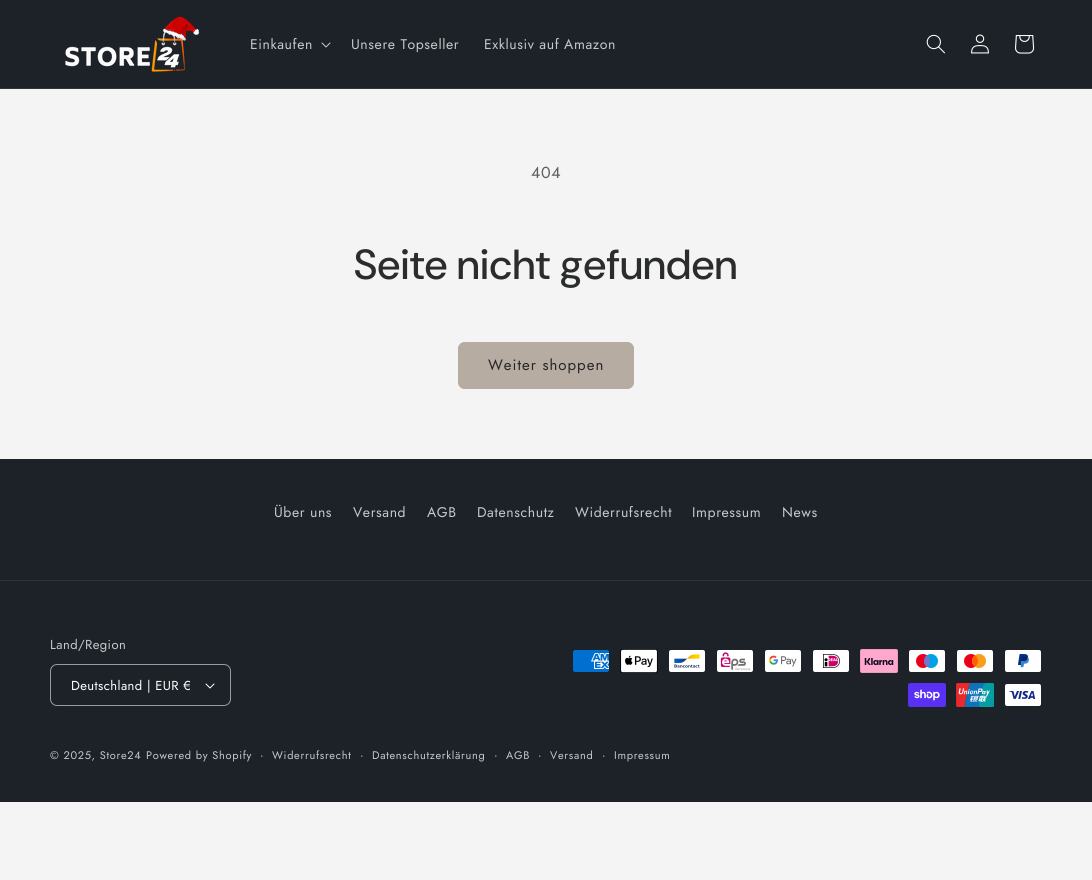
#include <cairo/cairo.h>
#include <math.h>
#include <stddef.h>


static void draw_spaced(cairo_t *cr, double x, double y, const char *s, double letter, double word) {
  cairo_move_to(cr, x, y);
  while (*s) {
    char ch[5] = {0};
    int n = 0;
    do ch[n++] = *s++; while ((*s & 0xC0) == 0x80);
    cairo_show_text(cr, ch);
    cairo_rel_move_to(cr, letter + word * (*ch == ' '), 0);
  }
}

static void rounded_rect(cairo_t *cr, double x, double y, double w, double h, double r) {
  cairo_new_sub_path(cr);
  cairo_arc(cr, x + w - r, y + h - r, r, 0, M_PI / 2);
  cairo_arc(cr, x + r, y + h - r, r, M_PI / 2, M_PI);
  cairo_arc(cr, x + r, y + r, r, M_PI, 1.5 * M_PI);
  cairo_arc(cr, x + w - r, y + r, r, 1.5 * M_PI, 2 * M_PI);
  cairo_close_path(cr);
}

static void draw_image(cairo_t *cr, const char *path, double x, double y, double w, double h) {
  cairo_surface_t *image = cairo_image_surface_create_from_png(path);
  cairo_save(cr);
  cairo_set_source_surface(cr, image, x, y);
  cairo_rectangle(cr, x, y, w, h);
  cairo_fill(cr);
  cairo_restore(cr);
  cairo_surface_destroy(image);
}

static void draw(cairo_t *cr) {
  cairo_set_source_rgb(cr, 244 / 255.0, 244 / 255.0, 244 / 255.0);
  cairo_paint(cr);
  cairo_set_source_rgb(cr, 28 / 255.0, 34 / 255.0, 40 / 255.0);
  cairo_rectangle(cr, 0, 0, 1092, 88);
  cairo_fill(cr);
  cairo_set_source_rgb(cr, 46 / 255.0, 52 / 255.0, 57 / 255.0);
  cairo_rectangle(cr, 0, 88, 1092, 1);
  cairo_fill(cr);
  draw_image(cr, "images/1.png", 65, 16, 135, 56);
  draw_image(cr, "images/2.png", 321, 42, 10, 6);
  draw_image(cr, "images/3.png", 926, 34, 19, 20);
  draw_image(cr, "images/4.png", 971, 34, 18, 20);
  draw_image(cr, "images/5.png", 1015, 35, 20, 19);
  cairo_set_source_rgb(cr, 183 / 255.0, 172 / 255.0, 162 / 255.0);
  rounded_rect(cr, 458, 342, 176, 47, 7);
  cairo_fill(cr);
  rounded_rect(cr, 458.5, 342.5, 175, 46, 6.5);
  cairo_set_line_width(cr, 1);
  cairo_stroke(cr);
  cairo_set_source_rgb(cr, 28 / 255.0, 34 / 255.0, 40 / 255.0);
  cairo_rectangle(cr, 0, 459, 1092, 343);
  cairo_fill(cr);
  cairo_set_source_rgb(cr, 46 / 255.0, 52 / 255.0, 57 / 255.0);
  cairo_rectangle(cr, 0, 580, 1092, 1);
  cairo_fill(cr);
  draw_image(cr, "images/6.png", 205, 683, 10, 6);
  rounded_rect(cr, 50.5, 664.5, 180, 41, 6.5);
  cairo_set_source_rgb(cr, 153 / 255.0, 156 / 255.0, 158 / 255.0);
  cairo_stroke(cr);
  draw_image(cr, "images/7.png", 573, 650, 36, 22);
  draw_image(cr, "images/8.png", 620, 649, 38, 24);
  draw_image(cr, "images/9.png", 669, 650, 36, 22);
  draw_image(cr, "images/10.png", 717, 650, 36, 22);
  draw_image(cr, "images/11.png", 765, 650, 36, 22);
  draw_image(cr, "images/12.png", 813, 650, 36, 22);
  draw_image(cr, "images/13.png", 860, 649, 38, 24);
  draw_image(cr, "images/14.png", 909, 650, 36, 22);
  draw_image(cr, "images/15.png", 957, 650, 36, 22);
  draw_image(cr, "images/16.png", 1005, 650, 36, 22);
  draw_image(cr, "images/17.png", 908, 683, 38, 24);
  draw_image(cr, "images/18.png", 956, 683, 38, 24);
  draw_image(cr, "images/19.png", 1005, 684, 36, 22);
  cairo_select_font_face(cr, "Jost", CAIRO_FONT_SLANT_NORMAL, CAIRO_FONT_WEIGHT_NORMAL);
  cairo_set_font_size(cr, 14);
  cairo_set_source_rgb(cr, 198 / 255.0, 200 / 255.0, 201 / 255.0);
  draw_spaced(cr, 250, 49, "Einkaufen", 0.6, 0);
  draw_spaced(cr, 351, 49, "Unsere Topseller", 0.6, 0);
  draw_spaced(cr, 484, 49, "Exklusiv auf Amazon", 0.6, 0);
  cairo_set_font_size(cr, 16);
  cairo_set_source_rgb(cr, 93 / 255.0, 94 / 255.0, 95 / 255.0);
  draw_spaced(cr, 531, 178, "404", 0.6, 0);
  cairo_select_font_face(cr, "DM Sans Medium", CAIRO_FONT_SLANT_NORMAL, CAIRO_FONT_WEIGHT_NORMAL);
  cairo_set_font_size(cr, 42);
  cairo_set_source_rgb(cr, 43 / 255.0, 44 / 255.0, 45 / 255.0);
  draw_spaced(cr, 354, 279, "Seite nicht gefunden", 0.6, 0);
  cairo_select_font_face(cr, "Jost", CAIRO_FONT_SLANT_NORMAL, CAIRO_FONT_WEIGHT_NORMAL);
  cairo_set_font_size(cr, 15);
  cairo_set_source_rgb(cr, 38 / 255.0, 38 / 255.0, 38 / 255.0);
  draw_spaced(cr, 488, 370, "Weiter shoppen", 1, 0);
  cairo_set_font_size(cr, 14);
  cairo_set_source_rgb(cr, 198 / 255.0, 200 / 255.0, 201 / 255.0);
  draw_spaced(cr, 274, 517, "Über uns", 0.6, 0);
  draw_spaced(cr, 353, 517, "Versand", 0.6, 0);
  draw_spaced(cr, 427, 517, "AGB", 0.6, 0);
  draw_spaced(cr, 477, 517, "Datenschutz", 0.6, 0);
  draw_spaced(cr, 575, 517, "Widerrufsrecht", 0.6, 0);
  draw_spaced(cr, 692, 517, "Impressum", 0.6, 0);
  draw_spaced(cr, 782, 517, "News", 0.6, 0);
  cairo_set_font_size(cr, 13);
  draw_spaced(cr, 50, 649, "Land/Region", 0.4, 0);
  cairo_set_source_rgb(cr, 1, 1, 1);
  draw_spaced(cr, 71, 690, "Deutschland | EUR €", 0.4, 0);
  cairo_set_font_size(cr, 11);
  cairo_set_source_rgb(cr, 198 / 255.0, 200 / 255.0, 201 / 255.0);
  draw_spaced(cr, 50, 759, "© 2025, Store24", 0.7, 0);
  draw_spaced(cr, 146, 759, "Powered by Shopify", 0.7, 0);
  cairo_set_font_size(cr, 12);
  draw_spaced(cr, 260, 759, "·", 0.7, 0);
  cairo_set_font_size(cr, 11);
  draw_spaced(cr, 272, 759, "Widerrufsrecht", 0.7, 0);
  cairo_set_font_size(cr, 12);
  draw_spaced(cr, 360, 759, "·", 0.7, 0);
  cairo_set_font_size(cr, 11);
  draw_spaced(cr, 372, 759, "Datenschutzerklärung", 0.7, 0);
  cairo_set_font_size(cr, 12);
  draw_spaced(cr, 494, 759, "·", 0.7, 0);
  cairo_set_font_size(cr, 11);
  draw_spaced(cr, 506, 759, "AGB", 0.7, 0);
  cairo_set_font_size(cr, 12);
  draw_spaced(cr, 538, 759, "·", 0.7, 0);
  cairo_set_font_size(cr, 11);
  draw_spaced(cr, 550, 759, "Versand", 0.7, 0);
  cairo_set_font_size(cr, 12);
  draw_spaced(cr, 602, 759, "·", 0.7, 0);
  cairo_set_font_size(cr, 11);
  draw_spaced(cr, 614, 759, "Impressum", 0.7, 0);
}

int main(void) {
  cairo_surface_t *surface = cairo_image_surface_create(CAIRO_FORMAT_RGB24, 1092, 880);
  cairo_t *cr = cairo_create(surface);
  cairo_font_options_t *options = cairo_font_options_create();
  cairo_font_options_set_hint_metrics(options, CAIRO_HINT_METRICS_OFF);
  cairo_font_options_set_hint_style(options, CAIRO_HINT_STYLE_NONE);
  cairo_set_font_options(cr, options);
  cairo_set_miter_limit(cr, 4);
  draw(cr);
  cairo_surface_write_to_png(surface, "out.png");
  cairo_font_options_destroy(options);
  cairo_destroy(cr);
  cairo_surface_destroy(surface);
  return 0;
}
